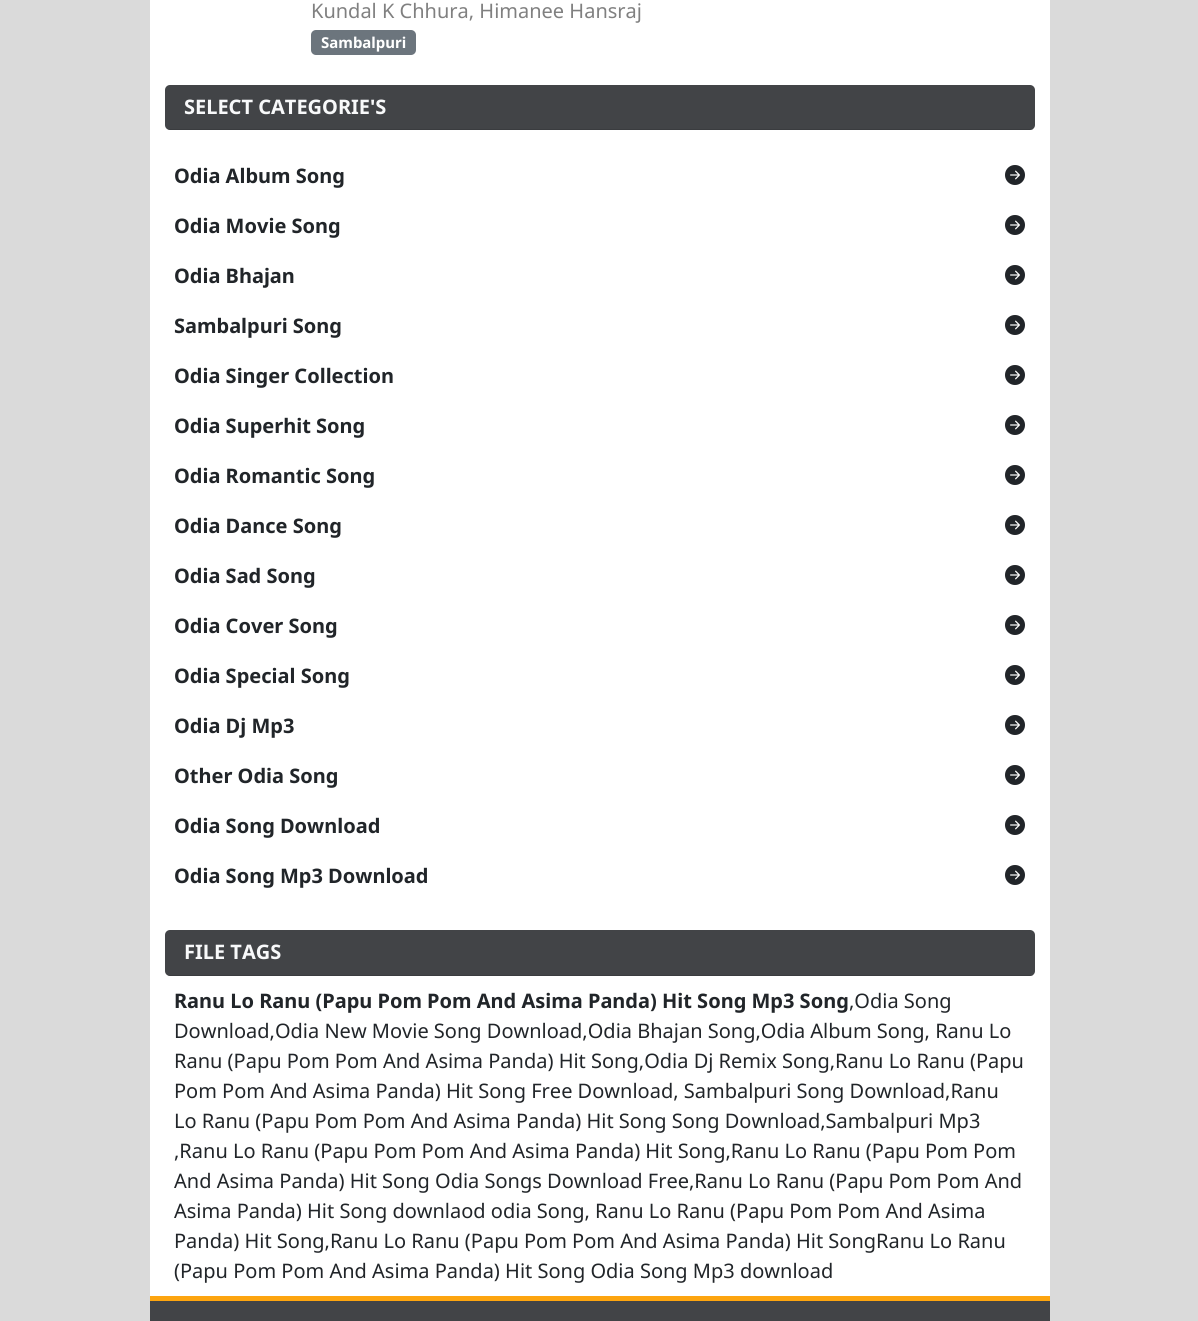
#include <cairo/cairo.h>
#include <math.h>
#include <stddef.h>


static void rounded_rect(cairo_t *cr, double x, double y, double w, double h, double r) {
  cairo_new_sub_path(cr);
  cairo_arc(cr, x + w - r, y + h - r, r, 0, M_PI / 2);
  cairo_arc(cr, x + r, y + h - r, r, M_PI / 2, M_PI);
  cairo_arc(cr, x + r, y + r, r, M_PI, 1.5 * M_PI);
  cairo_arc(cr, x + w - r, y + r, r, 1.5 * M_PI, 2 * M_PI);
  cairo_close_path(cr);
}

static void draw_image(cairo_t *cr, const char *path, double x, double y, double w, double h) {
  cairo_surface_t *image = cairo_image_surface_create_from_png(path);
  cairo_save(cr);
  cairo_set_source_surface(cr, image, x, y);
  cairo_rectangle(cr, x, y, w, h);
  cairo_fill(cr);
  cairo_restore(cr);
  cairo_surface_destroy(image);
}

static void draw(cairo_t *cr) {
  cairo_set_source_rgb(cr, 218 / 255.0, 218 / 255.0, 218 / 255.0);
  cairo_paint(cr);
  cairo_set_source_rgb(cr, 1, 1, 1);
  cairo_rectangle(cr, 150, 0, 900, 1296);
  cairo_fill(cr);
  cairo_set_source_rgb(cr, 108 / 255.0, 117 / 255.0, 125 / 255.0);
  rounded_rect(cr, 311, 30, 105, 25, 5);
  cairo_fill(cr);
  cairo_set_source_rgb(cr, 66 / 255.0, 68 / 255.0, 71 / 255.0);
  rounded_rect(cr, 165, 85, 870, 45, 5);
  cairo_fill(cr);
  cairo_set_source_rgba(cr, 0, 0, 0, 0.12);
  cairo_rectangle(cr, 168, 129, 865, 1);
  cairo_fill(cr);
  draw_image(cr, "images/1.png", 1005, 165, 20, 20);
  draw_image(cr, "images/1.png", 1005, 215, 20, 20);
  draw_image(cr, "images/1.png", 1005, 265, 20, 20);
  draw_image(cr, "images/1.png", 1005, 315, 20, 20);
  draw_image(cr, "images/1.png", 1005, 365, 20, 20);
  draw_image(cr, "images/1.png", 1005, 415, 20, 20);
  draw_image(cr, "images/1.png", 1005, 465, 20, 20);
  draw_image(cr, "images/1.png", 1005, 515, 20, 20);
  draw_image(cr, "images/1.png", 1005, 565, 20, 20);
  draw_image(cr, "images/1.png", 1005, 615, 20, 20);
  draw_image(cr, "images/1.png", 1005, 665, 20, 20);
  draw_image(cr, "images/1.png", 1005, 715, 20, 20);
  draw_image(cr, "images/1.png", 1005, 765, 20, 20);
  draw_image(cr, "images/1.png", 1005, 815, 20, 20);
  draw_image(cr, "images/1.png", 1005, 865, 20, 20);
  cairo_set_source_rgb(cr, 66 / 255.0, 68 / 255.0, 71 / 255.0);
  rounded_rect(cr, 165, 930, 870, 46, 5);
  cairo_fill(cr);
  cairo_set_source_rgba(cr, 0, 0, 0, 0.12);
  cairo_rectangle(cr, 168, 975, 865, 1);
  cairo_fill(cr);
  cairo_set_source_rgb(cr, 66 / 255.0, 68 / 255.0, 71 / 255.0);
  cairo_rectangle(cr, 150, 1301, 900, 20);
  cairo_fill(cr);
  cairo_set_source_rgb(cr, 253 / 255.0, 165 / 255.0, 15 / 255.0);
  cairo_rectangle(cr, 150, 1296, 900, 5);
  cairo_fill(cr);
  cairo_select_font_face(cr, "Noto Sans", CAIRO_FONT_SLANT_NORMAL, CAIRO_FONT_WEIGHT_NORMAL);
  cairo_set_font_size(cr, 20);
  cairo_set_source_rgb(cr, 128 / 255.0, 128 / 255.0, 128 / 255.0);
  cairo_move_to(cr, 311, 18);
  cairo_show_text(cr, "Kundal K Chhura, Himanee Hansraj");
  cairo_select_font_face(cr, "Noto Sans", CAIRO_FONT_SLANT_NORMAL, CAIRO_FONT_WEIGHT_BOLD);
  cairo_set_font_size(cr, 15);
  cairo_set_source_rgb(cr, 1, 1, 1);
  cairo_move_to(cr, 321, 48);
  cairo_show_text(cr, "Sambalpuri");
  cairo_set_font_size(cr, 20);
  cairo_set_source_rgb(cr, 248 / 255.0, 249 / 255.0, 250 / 255.0);
  cairo_move_to(cr, 184, 114);
  cairo_show_text(cr, "SELECT CATEGORIE'S");
  cairo_set_source_rgb(cr, 33 / 255.0, 37 / 255.0, 41 / 255.0);
  cairo_move_to(cr, 174, 183);
  cairo_show_text(cr, "Odia Album Song");
  cairo_move_to(cr, 174, 233);
  cairo_show_text(cr, "Odia Movie Song");
  cairo_move_to(cr, 174, 283);
  cairo_show_text(cr, "Odia Bhajan");
  cairo_move_to(cr, 174, 333);
  cairo_show_text(cr, "Sambalpuri Song");
  cairo_move_to(cr, 174, 383);
  cairo_show_text(cr, "Odia Singer Collection");
  cairo_move_to(cr, 174, 433);
  cairo_show_text(cr, "Odia Superhit Song");
  cairo_move_to(cr, 174, 483);
  cairo_show_text(cr, "Odia Romantic Song");
  cairo_move_to(cr, 174, 533);
  cairo_show_text(cr, "Odia Dance Song");
  cairo_move_to(cr, 174, 583);
  cairo_show_text(cr, "Odia Sad Song");
  cairo_move_to(cr, 174, 633);
  cairo_show_text(cr, "Odia Cover Song");
  cairo_move_to(cr, 174, 683);
  cairo_show_text(cr, "Odia Special Song");
  cairo_move_to(cr, 174, 733);
  cairo_show_text(cr, "Odia Dj Mp3");
  cairo_move_to(cr, 174, 783);
  cairo_show_text(cr, "Other Odia Song");
  cairo_move_to(cr, 174, 833);
  cairo_show_text(cr, "Odia Song Download");
  cairo_move_to(cr, 174, 883);
  cairo_show_text(cr, "Odia Song Mp3 Download");
  cairo_set_source_rgb(cr, 248 / 255.0, 249 / 255.0, 250 / 255.0);
  cairo_move_to(cr, 184, 959);
  cairo_show_text(cr, "FILE TAGS");
  cairo_set_source_rgb(cr, 33 / 255.0, 37 / 255.0, 41 / 255.0);
  cairo_move_to(cr, 174, 1008);
  cairo_show_text(cr, "Ranu Lo Ranu (Papu Pom Pom And Asima Panda) Hit Song Mp3 Song");
  cairo_select_font_face(cr, "Noto Sans", CAIRO_FONT_SLANT_NORMAL, CAIRO_FONT_WEIGHT_NORMAL);
  cairo_move_to(cr, 849, 1008);
  cairo_show_text(cr, ",Odia Song");
  cairo_move_to(cr, 174, 1038);
  cairo_show_text(cr, "Download,Odia New Movie Song Download,Odia Bhajan Song,Odia Album Song, Ranu Lo");
  cairo_move_to(cr, 174, 1068);
  cairo_show_text(cr, "Ranu (Papu Pom Pom And Asima Panda) Hit Song,Odia Dj Remix Song,Ranu Lo Ranu (Papu");
  cairo_move_to(cr, 174, 1098);
  cairo_show_text(cr, "Pom Pom And Asima Panda) Hit Song Free Download, Sambalpuri Song Download,Ranu");
  cairo_move_to(cr, 174, 1128);
  cairo_show_text(cr, "Lo Ranu (Papu Pom Pom And Asima Panda) Hit Song Song Download,Sambalpuri Mp3");
  cairo_move_to(cr, 174, 1158);
  cairo_show_text(cr, ",Ranu Lo Ranu (Papu Pom Pom And Asima Panda) Hit Song,Ranu Lo Ranu (Papu Pom Pom");
  cairo_move_to(cr, 174, 1188);
  cairo_show_text(cr, "And Asima Panda) Hit Song Odia Songs Download Free,Ranu Lo Ranu (Papu Pom Pom And");
  cairo_move_to(cr, 174, 1218);
  cairo_show_text(cr, "Asima Panda) Hit Song downlaod odia Song, Ranu Lo Ranu (Papu Pom Pom And Asima");
  cairo_move_to(cr, 174, 1248);
  cairo_show_text(cr, "Panda) Hit Song,Ranu Lo Ranu (Papu Pom Pom And Asima Panda) Hit SongRanu Lo Ranu");
  cairo_move_to(cr, 174, 1278);
  cairo_show_text(cr, "(Papu Pom Pom And Asima Panda) Hit Song Odia Song Mp3 download");
}

int main(void) {
  cairo_surface_t *surface = cairo_image_surface_create(CAIRO_FORMAT_RGB24, 1198, 1321);
  cairo_t *cr = cairo_create(surface);
  cairo_font_options_t *options = cairo_font_options_create();
  cairo_font_options_set_hint_metrics(options, CAIRO_HINT_METRICS_OFF);
  cairo_font_options_set_hint_style(options, CAIRO_HINT_STYLE_NONE);
  cairo_set_font_options(cr, options);
  cairo_set_miter_limit(cr, 4);
  draw(cr);
  cairo_surface_write_to_png(surface, "out.png");
  cairo_font_options_destroy(options);
  cairo_destroy(cr);
  cairo_surface_destroy(surface);
  return 0;
}
